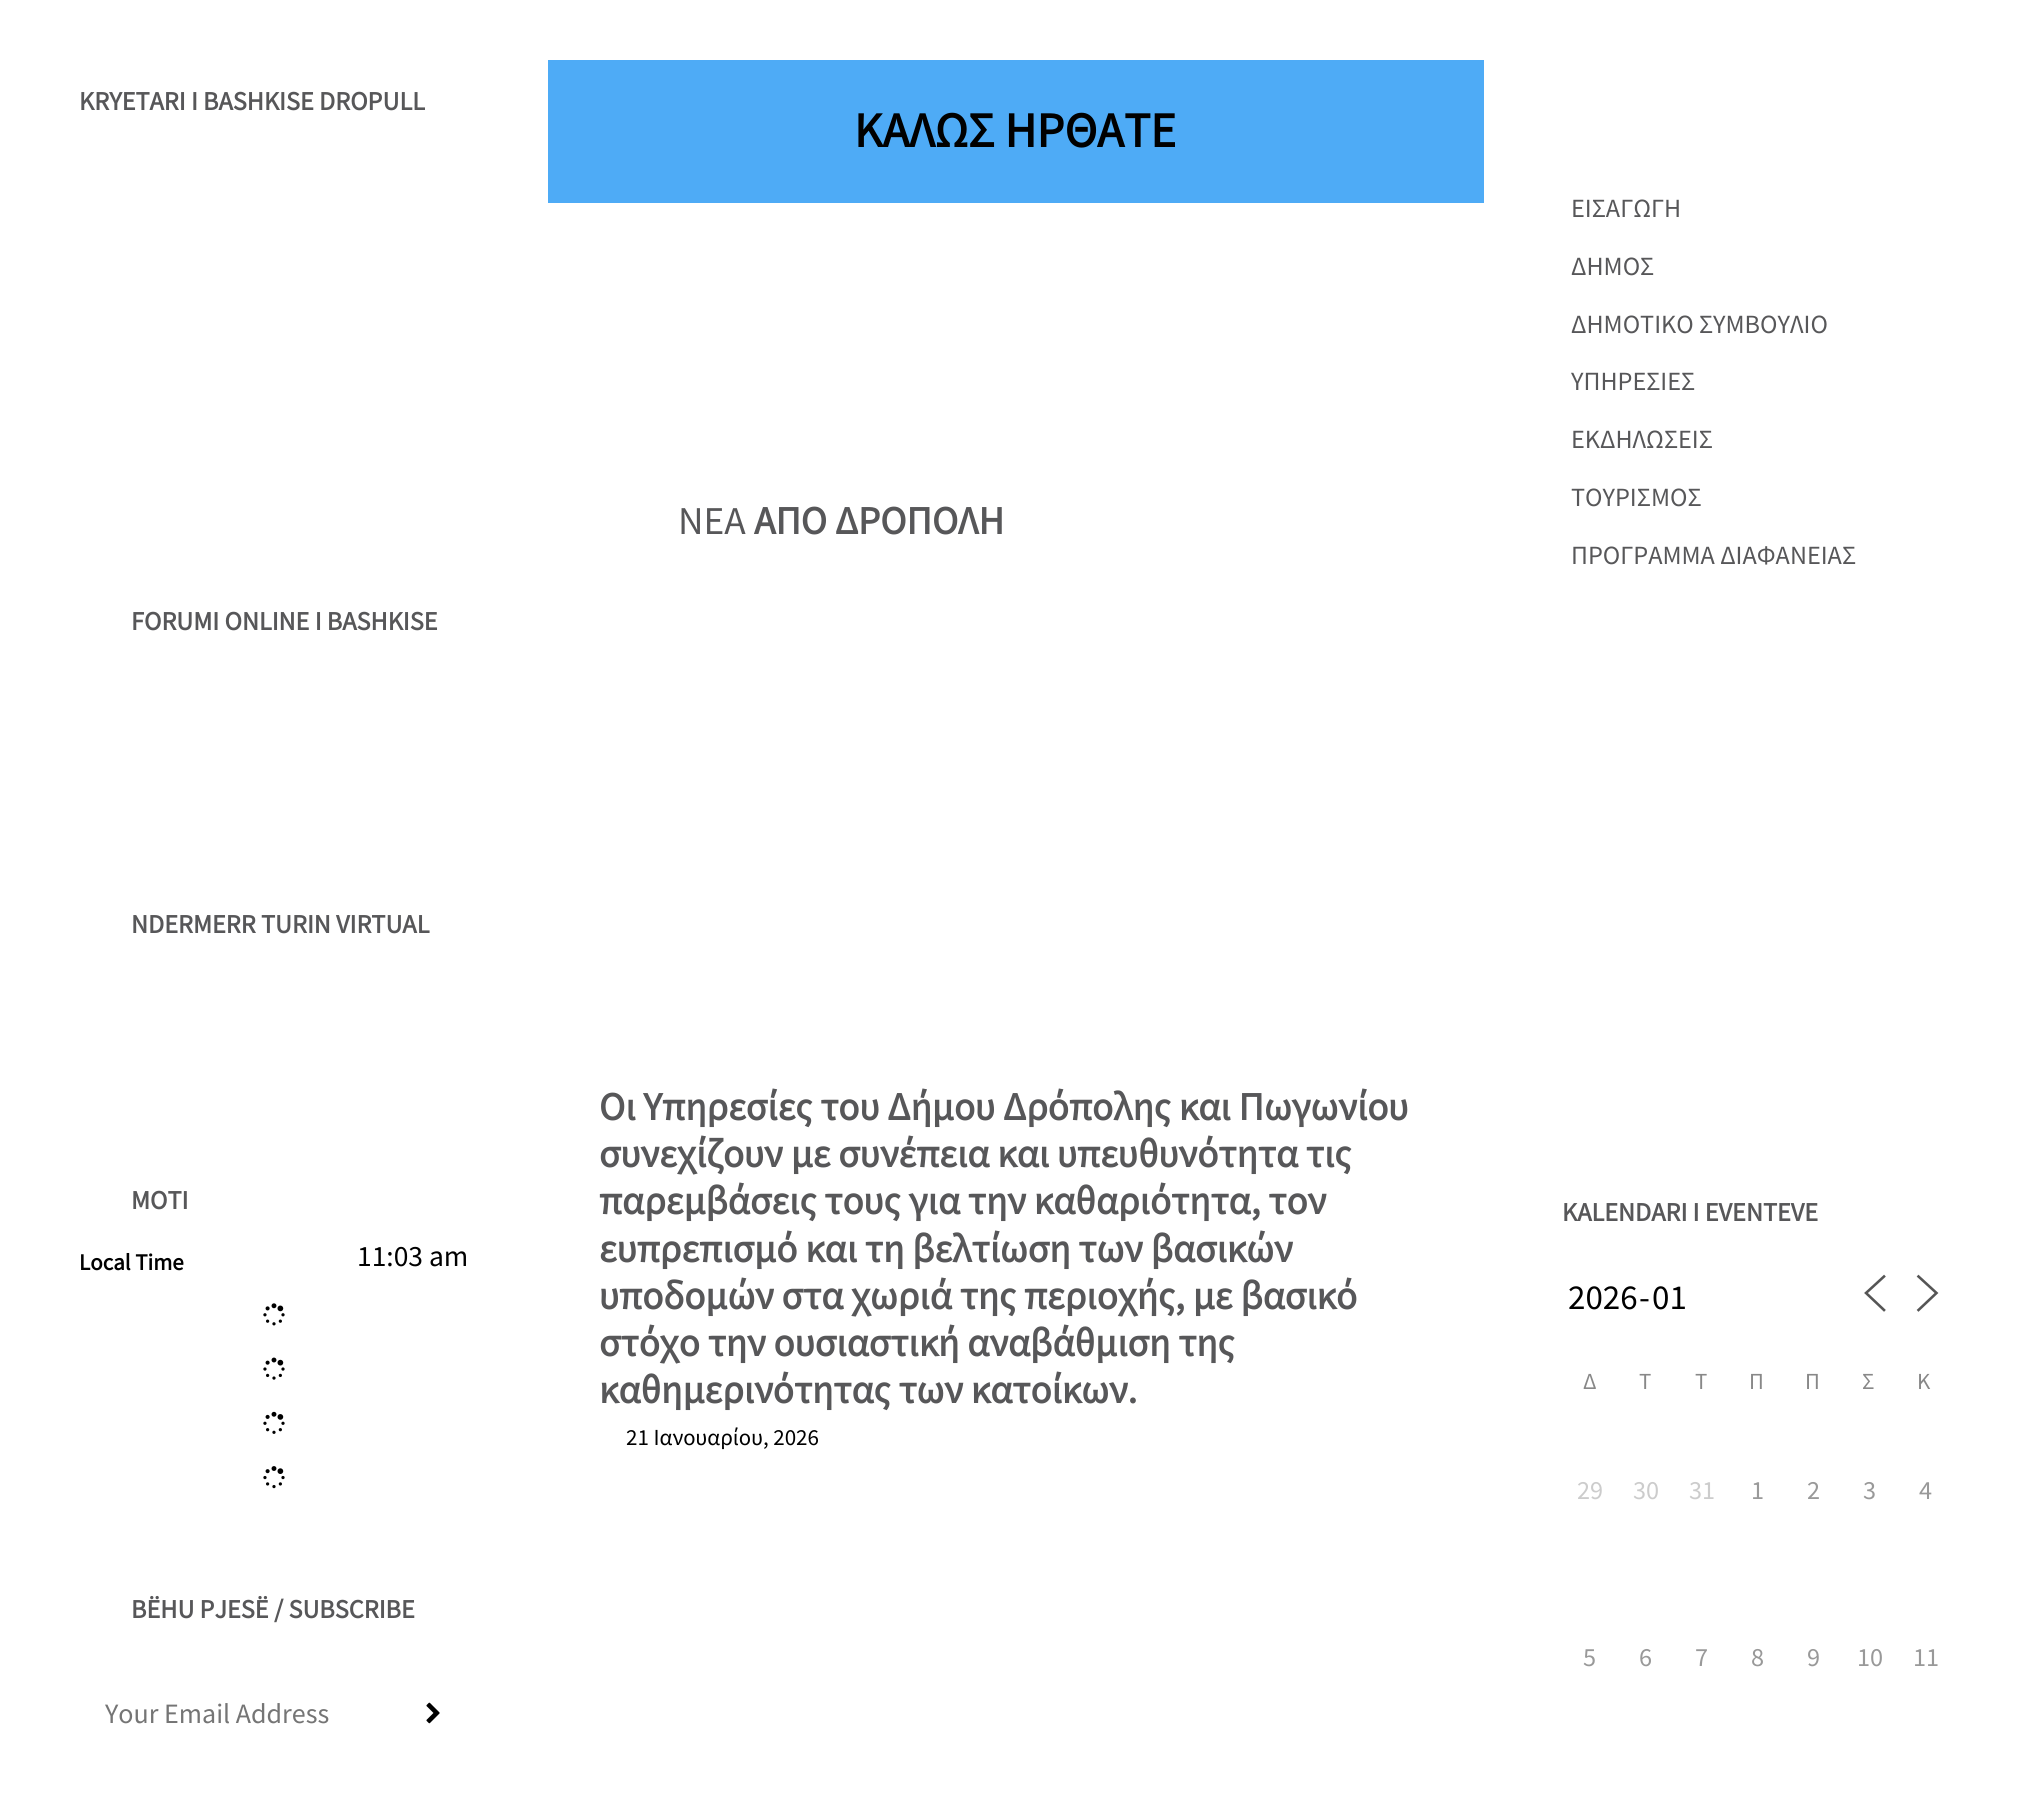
#include <cairo/cairo.h>
#include <math.h>
#include <stddef.h>


static void draw_image(cairo_t *cr, const char *path, double x, double y, double w, double h) {
  cairo_surface_t *image = cairo_image_surface_create_from_png(path);
  cairo_save(cr);
  cairo_set_source_surface(cr, image, x, y);
  cairo_rectangle(cr, x, y, w, h);
  cairo_fill(cr);
  cairo_restore(cr);
  cairo_surface_destroy(image);
}

static void draw(cairo_t *cr) {
  cairo_set_source_rgb(cr, 1, 1, 1);
  cairo_paint(cr);
  draw_image(cr, "images/1.png", 263, 1303, 22, 23);
  draw_image(cr, "images/2.png", 263, 1357, 22, 23);
  draw_image(cr, "images/3.png", 263, 1411, 22, 23);
  draw_image(cr, "images/4.png", 263, 1466, 22, 23);
  draw_image(cr, "images/5.png", 426, 1702, 14, 22);
  cairo_set_source_rgb(cr, 78 / 255.0, 171 / 255.0, 246 / 255.0);
  cairo_rectangle(cr, 548, 60, 936, 143);
  cairo_fill(cr);
  cairo_new_path(cr);
  cairo_move_to(cr, 1884, 1310);
  cairo_line_to(cr, 1866, 1293);
  cairo_line_to(cr, 1884, 1276.5);
  cairo_set_source_rgb(cr, 85 / 255.0, 85 / 255.0, 85 / 255.0);
  cairo_set_line_width(cr, 2.6);
  cairo_set_line_cap(cr, CAIRO_LINE_CAP_SQUARE);
  cairo_stroke(cr);
  cairo_new_path(cr);
  cairo_move_to(cr, 1918.5, 1310);
  cairo_line_to(cr, 1936.5, 1293);
  cairo_line_to(cr, 1918.5, 1276.5);
  cairo_stroke(cr);
  cairo_select_font_face(cr, "Source Sans Pro", CAIRO_FONT_SLANT_NORMAL, CAIRO_FONT_WEIGHT_BOLD);
  cairo_set_font_size(cr, 26.25);
  cairo_set_source_rgb(cr, 87 / 255.0, 87 / 255.0, 89 / 255.0);
  cairo_move_to(cr, 79, 110);
  cairo_show_text(cr, "KRYETARI I BASHKISE DROPULL");
  cairo_move_to(cr, 131, 630);
  cairo_show_text(cr, "FORUMI ONLINE I BASHKISE");
  cairo_move_to(cr, 131, 933);
  cairo_show_text(cr, "NDERMERR TURIN VIRTUAL");
  cairo_move_to(cr, 131, 1209);
  cairo_show_text(cr, "MOTI");
  cairo_set_font_size(cr, 23);
  cairo_set_source_rgb(cr, 0, 0, 0);
  cairo_move_to(cr, 79, 1270);
  cairo_show_text(cr, "Local Time");
  cairo_select_font_face(cr, "Source Sans Pro", CAIRO_FONT_SLANT_NORMAL, CAIRO_FONT_WEIGHT_NORMAL);
  cairo_set_font_size(cr, 29.5);
  cairo_move_to(cr, 357, 1266);
  cairo_show_text(cr, "11:03 am");
  cairo_select_font_face(cr, "Source Sans Pro", CAIRO_FONT_SLANT_NORMAL, CAIRO_FONT_WEIGHT_BOLD);
  cairo_set_font_size(cr, 26.25);
  cairo_set_source_rgb(cr, 87 / 255.0, 87 / 255.0, 89 / 255.0);
  cairo_move_to(cr, 131, 1618);
  cairo_show_text(cr, "BËHU PJESË / SUBSCRIBE");
  cairo_select_font_face(cr, "Source Sans Pro", CAIRO_FONT_SLANT_NORMAL, CAIRO_FONT_WEIGHT_NORMAL);
  cairo_set_font_size(cr, 28);
  cairo_set_source_rgb(cr, 117 / 255.0, 117 / 255.0, 117 / 255.0);
  cairo_move_to(cr, 105, 1723);
  cairo_show_text(cr, "Your Email Address");
  cairo_select_font_face(cr, "Source Sans Pro", CAIRO_FONT_SLANT_NORMAL, CAIRO_FONT_WEIGHT_BOLD);
  cairo_set_font_size(cr, 49.25);
  cairo_set_source_rgb(cr, 0, 0, 0);
  cairo_move_to(cr, 854, 147);
  cairo_show_text(cr, "ΚΑΛΩΣ ΗΡΘΑΤΕ");
  cairo_select_font_face(cr, "Source Sans Pro", CAIRO_FONT_SLANT_NORMAL, CAIRO_FONT_WEIGHT_NORMAL);
  cairo_set_font_size(cr, 39.4);
  cairo_set_source_rgb(cr, 87 / 255.0, 87 / 255.0, 89 / 255.0);
  cairo_move_to(cr, 678, 534);
  cairo_show_text(cr, "ΝΕΑ");
  cairo_select_font_face(cr, "Source Sans Pro", CAIRO_FONT_SLANT_NORMAL, CAIRO_FONT_WEIGHT_BOLD);
  cairo_move_to(cr, 754, 534);
  cairo_show_text(cr, "ΑΠΟ ΔΡΟΠΟΛΗ");
  cairo_move_to(cr, 599, 1120);
  cairo_show_text(cr, "Οι Υπηρεσίες του Δήμου Δρόπολης και Πωγωνίου");
  cairo_move_to(cr, 599, 1167);
  cairo_show_text(cr, "συνεχίζουν με συνέπεια και υπευθυνότητα τις");
  cairo_move_to(cr, 599, 1214);
  cairo_show_text(cr, "παρεμβάσεις τους για την καθαριότητα, τον");
  cairo_move_to(cr, 599, 1262);
  cairo_show_text(cr, "ευπρεπισμό και τη βελτίωση των βασικών");
  cairo_move_to(cr, 599, 1309);
  cairo_show_text(cr, "υποδομών στα χωριά της περιοχής, με βασικό");
  cairo_move_to(cr, 599, 1356);
  cairo_show_text(cr, "στόχο την ουσιαστική αναβάθμιση της");
  cairo_move_to(cr, 599, 1403);
  cairo_show_text(cr, "καθημερινότητας των κατοίκων.");
  cairo_select_font_face(cr, "Source Sans Pro", CAIRO_FONT_SLANT_NORMAL, CAIRO_FONT_WEIGHT_NORMAL);
  cairo_set_font_size(cr, 23);
  cairo_set_source_rgb(cr, 0, 0, 0);
  cairo_move_to(cr, 626, 1445);
  cairo_show_text(cr, "21 Ιανουαρίου, 2026");
  cairo_set_font_size(cr, 26.25);
  cairo_set_source_rgb(cr, 87 / 255.0, 87 / 255.0, 89 / 255.0);
  cairo_move_to(cr, 1571, 217);
  cairo_show_text(cr, "ΕΙΣΑΓΩΓΗ");
  cairo_move_to(cr, 1571, 275);
  cairo_show_text(cr, "ΔΗΜΟΣ");
  cairo_move_to(cr, 1571, 333);
  cairo_show_text(cr, "ΔΗΜΟΤΙΚΟ ΣΥΜΒΟΥΛΙΟ");
  cairo_move_to(cr, 1571, 390);
  cairo_show_text(cr, "ΥΠΗΡΕΣΙΕΣ");
  cairo_move_to(cr, 1571, 448);
  cairo_show_text(cr, "ΕΚΔΗΛΩΣΕΙΣ");
  cairo_move_to(cr, 1571, 506);
  cairo_show_text(cr, "ΤΟΥΡΙΣΜΟΣ");
  cairo_move_to(cr, 1571, 564);
  cairo_show_text(cr, "ΠΡΟΓΡΑΜΜΑ ΔΙΑΦΑΝΕΙΑΣ");
  cairo_select_font_face(cr, "Source Sans Pro", CAIRO_FONT_SLANT_NORMAL, CAIRO_FONT_WEIGHT_BOLD);
  cairo_move_to(cr, 1562, 1221);
  cairo_show_text(cr, "KALENDARI I EVENTEVE");
  cairo_select_font_face(cr, "Source Sans Pro", CAIRO_FONT_SLANT_NORMAL, CAIRO_FONT_WEIGHT_NORMAL);
  cairo_set_font_size(cr, 35);
  cairo_set_source_rgb(cr, 0, 0, 0);
  cairo_move_to(cr, 1568, 1309);
  cairo_show_text(cr, "2026");
  cairo_move_to(cr, 1639, 1309);
  cairo_show_text(cr, "-");
  cairo_move_to(cr, 1652, 1309);
  cairo_show_text(cr, "01");
  cairo_set_font_size(cr, 23);
  cairo_set_source_rgb(cr, 136 / 255.0, 136 / 255.0, 136 / 255.0);
  cairo_move_to(cr, 1583, 1389);
  cairo_show_text(cr, "Δ");
  cairo_move_to(cr, 1639, 1389);
  cairo_show_text(cr, "Τ");
  cairo_move_to(cr, 1695, 1389);
  cairo_show_text(cr, "Τ");
  cairo_move_to(cr, 1749, 1389);
  cairo_show_text(cr, "Π");
  cairo_move_to(cr, 1805, 1389);
  cairo_show_text(cr, "Π");
  cairo_move_to(cr, 1862, 1389);
  cairo_show_text(cr, "Σ");
  cairo_move_to(cr, 1917, 1389);
  cairo_show_text(cr, "Κ");
  cairo_set_font_size(cr, 26.25);
  cairo_set_source_rgb(cr, 204 / 255.0, 204 / 255.0, 204 / 255.0);
  cairo_move_to(cr, 1577, 1499);
  cairo_show_text(cr, "29");
  cairo_move_to(cr, 1633, 1499);
  cairo_show_text(cr, "30");
  cairo_move_to(cr, 1689, 1499);
  cairo_show_text(cr, "31");
  cairo_set_source_rgb(cr, 153 / 255.0, 153 / 255.0, 153 / 255.0);
  cairo_move_to(cr, 1751, 1499);
  cairo_show_text(cr, "1");
  cairo_move_to(cr, 1807, 1499);
  cairo_show_text(cr, "2");
  cairo_move_to(cr, 1863, 1499);
  cairo_show_text(cr, "3");
  cairo_move_to(cr, 1919, 1499);
  cairo_show_text(cr, "4");
  cairo_move_to(cr, 1583, 1666);
  cairo_show_text(cr, "5");
  cairo_move_to(cr, 1639, 1666);
  cairo_show_text(cr, "6");
  cairo_move_to(cr, 1695, 1666);
  cairo_show_text(cr, "7");
  cairo_move_to(cr, 1751, 1666);
  cairo_show_text(cr, "8");
  cairo_move_to(cr, 1807, 1666);
  cairo_show_text(cr, "9");
  cairo_move_to(cr, 1857, 1666);
  cairo_show_text(cr, "10");
  cairo_move_to(cr, 1913, 1666);
  cairo_show_text(cr, "11");
}

int main(void) {
  cairo_surface_t *surface = cairo_image_surface_create(CAIRO_FORMAT_RGB24, 2030, 1812);
  cairo_t *cr = cairo_create(surface);
  cairo_font_options_t *options = cairo_font_options_create();
  cairo_font_options_set_hint_metrics(options, CAIRO_HINT_METRICS_OFF);
  cairo_font_options_set_hint_style(options, CAIRO_HINT_STYLE_NONE);
  cairo_set_font_options(cr, options);
  cairo_set_miter_limit(cr, 4);
  draw(cr);
  cairo_surface_write_to_png(surface, "out.png");
  cairo_font_options_destroy(options);
  cairo_destroy(cr);
  cairo_surface_destroy(surface);
  return 0;
}
